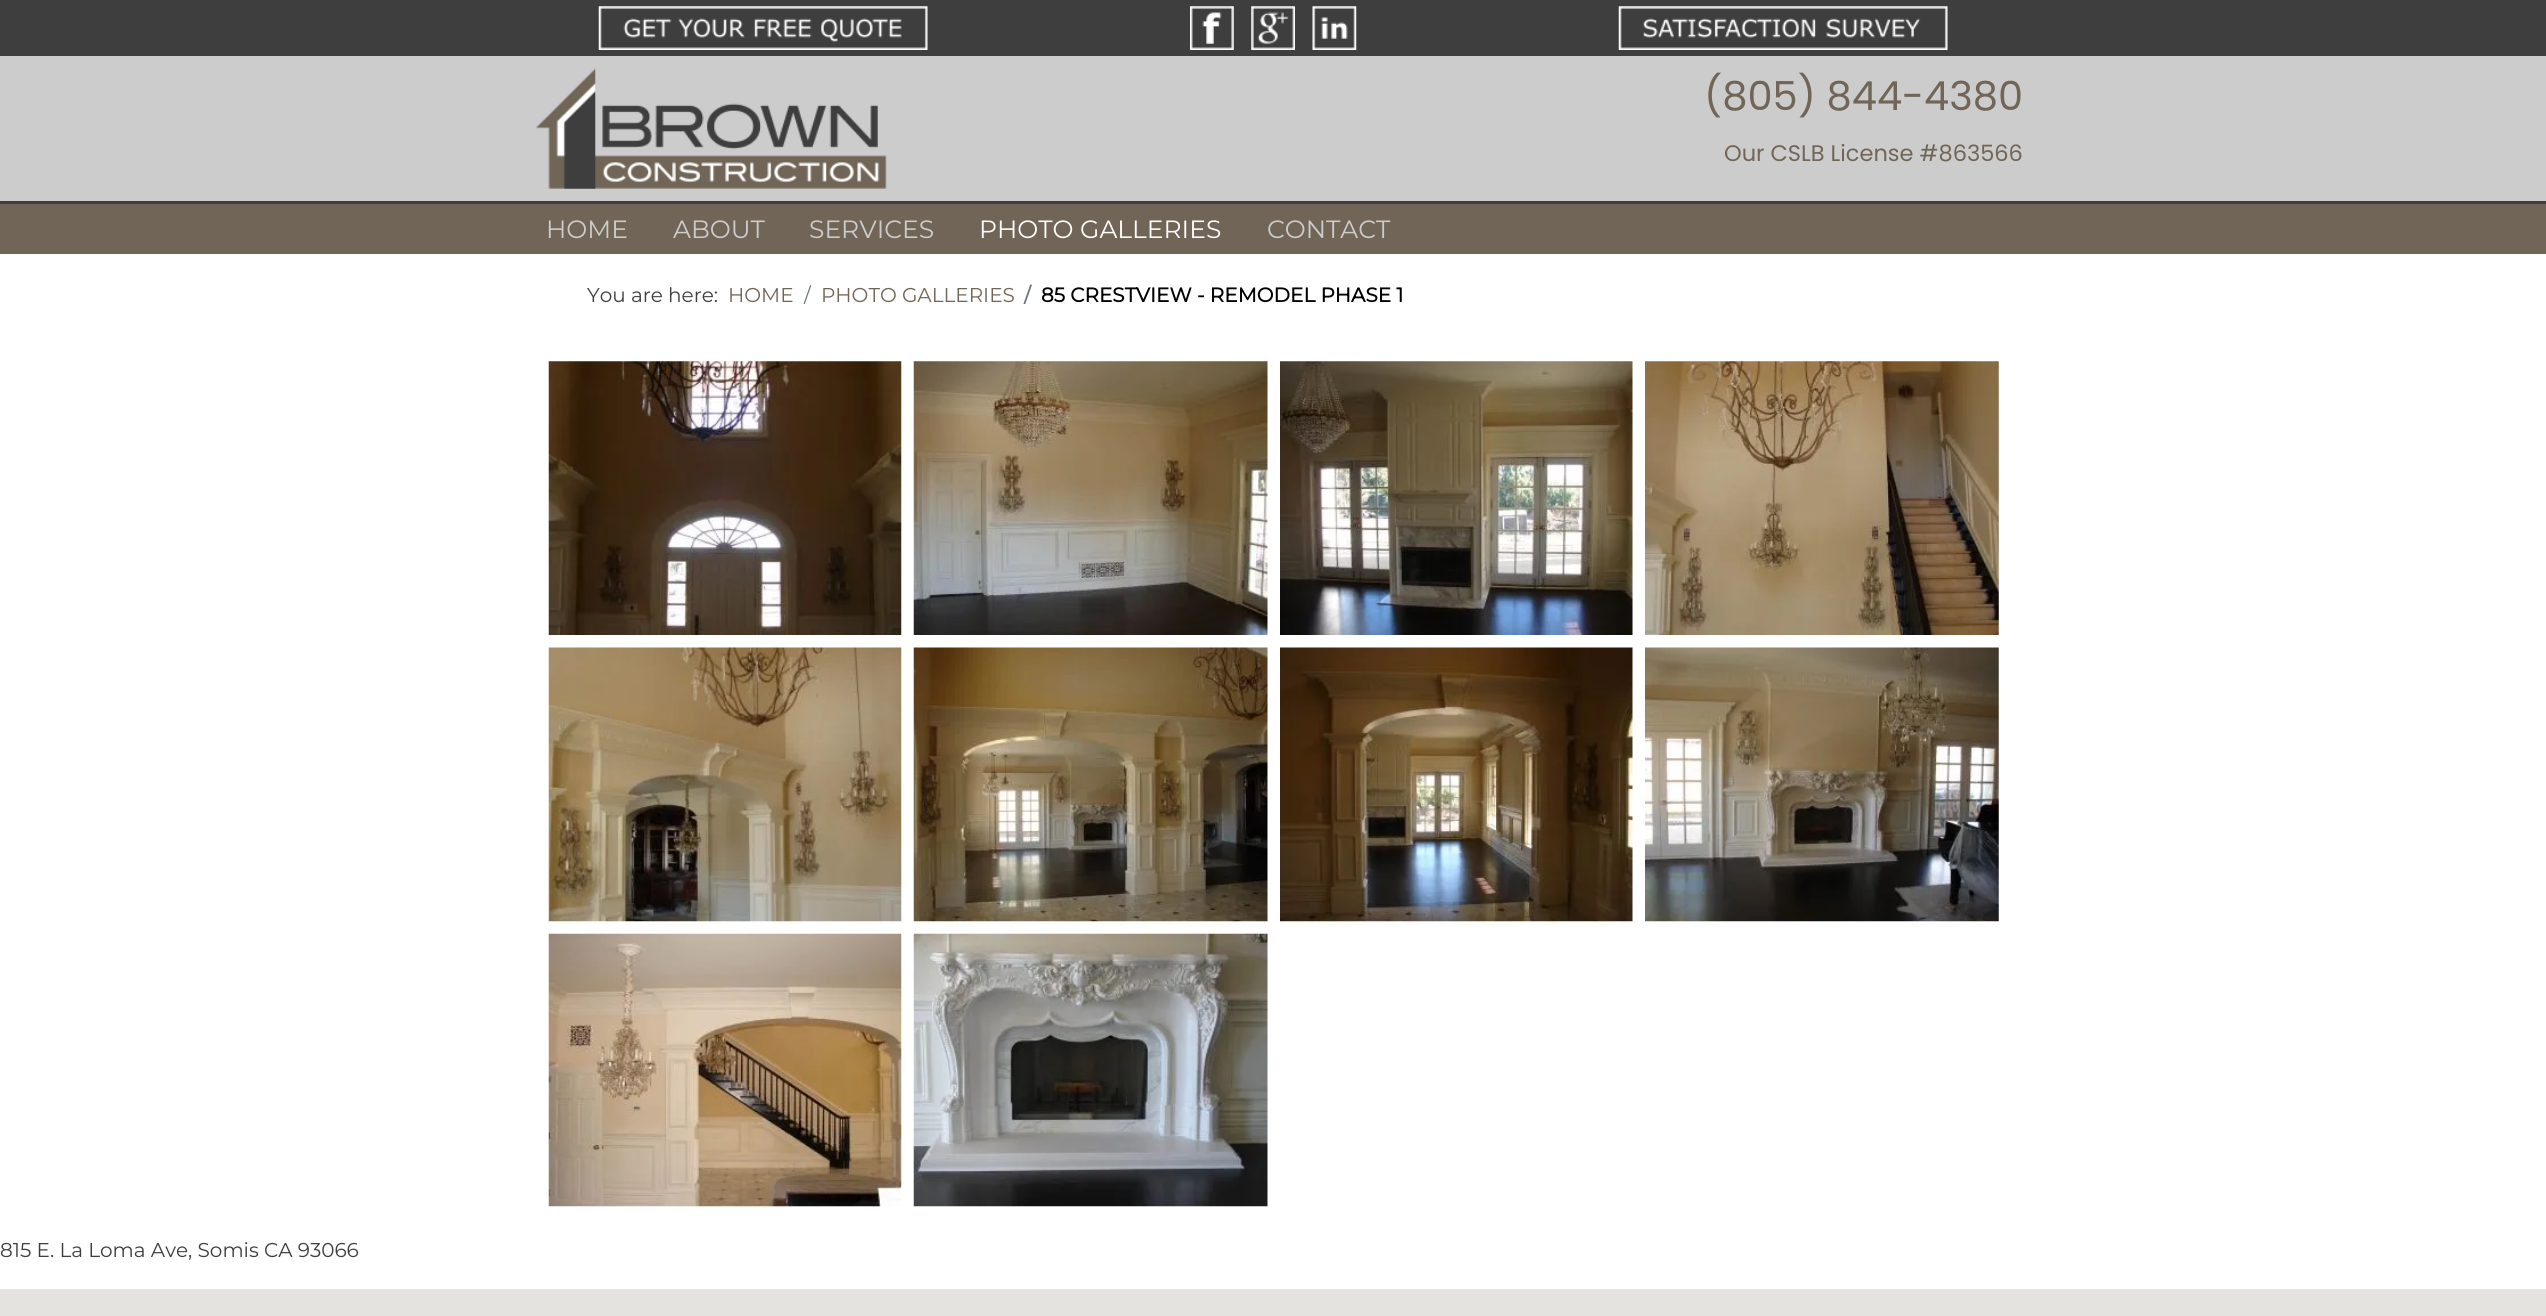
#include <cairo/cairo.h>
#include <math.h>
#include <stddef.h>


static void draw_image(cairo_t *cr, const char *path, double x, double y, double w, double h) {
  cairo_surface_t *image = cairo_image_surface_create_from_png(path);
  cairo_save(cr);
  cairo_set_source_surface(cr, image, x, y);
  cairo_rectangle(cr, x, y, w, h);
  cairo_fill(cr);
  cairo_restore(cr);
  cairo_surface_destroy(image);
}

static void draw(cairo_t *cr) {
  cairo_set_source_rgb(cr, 1, 1, 1);
  cairo_paint(cr);
  cairo_set_source_rgb(cr, 62 / 255.0, 62 / 255.0, 63 / 255.0);
  cairo_rectangle(cr, 0, 0, 2546, 56);
  cairo_fill(cr);
  draw_image(cr, "images/1.png", 598, 6, 330, 44);
  draw_image(cr, "images/2.png", 1190, 6, 44, 44);
  draw_image(cr, "images/3.png", 1251, 6, 44, 44);
  draw_image(cr, "images/4.png", 1312, 6, 45, 44);
  draw_image(cr, "images/5.png", 1618, 6, 330, 44);
  cairo_set_source_rgb(cr, 204 / 255.0, 204 / 255.0, 204 / 255.0);
  cairo_rectangle(cr, 0, 56, 2546, 145);
  cairo_fill(cr);
  draw_image(cr, "images/6.png", 536, 68, 351, 121);
  cairo_set_source_rgb(cr, 113 / 255.0, 101 / 255.0, 87 / 255.0);
  cairo_rectangle(cr, 0, 204, 2546, 50);
  cairo_fill(cr);
  cairo_set_source_rgb(cr, 62 / 255.0, 62 / 255.0, 63 / 255.0);
  cairo_rectangle(cr, 0, 201, 2546, 3);
  cairo_fill(cr);
  draw_image(cr, "images/7.png", 548, 361, 354, 274);
  draw_image(cr, "images/8.png", 913, 361, 355, 274);
  draw_image(cr, "images/9.png", 1280, 361, 353, 274);
  draw_image(cr, "images/10.png", 1645, 361, 354, 274);
  draw_image(cr, "images/11.png", 548, 647, 354, 275);
  draw_image(cr, "images/12.png", 913, 647, 355, 275);
  draw_image(cr, "images/13.png", 1280, 647, 353, 275);
  draw_image(cr, "images/14.png", 1645, 647, 354, 275);
  draw_image(cr, "images/15.png", 548, 933, 354, 274);
  draw_image(cr, "images/16.png", 913, 933, 355, 274);
  cairo_set_source_rgb(cr, 229 / 255.0, 227 / 255.0, 223 / 255.0);
  cairo_rectangle(cr, 0, 1289, 2546, 27);
  cairo_fill(cr);
  cairo_select_font_face(cr, "Poppins", CAIRO_FONT_SLANT_NORMAL, CAIRO_FONT_WEIGHT_NORMAL);
  cairo_set_font_size(cr, 40);
  cairo_set_source_rgb(cr, 113 / 255.0, 101 / 255.0, 87 / 255.0);
  cairo_move_to(cr, 1704, 110);
  cairo_show_text(cr, "(805) 844-4380");
  cairo_set_font_size(cr, 22.5);
  cairo_move_to(cr, 1724, 161);
  cairo_show_text(cr, "Our CSLB License #863566");
  cairo_select_font_face(cr, "Montserrat Thin", CAIRO_FONT_SLANT_NORMAL, CAIRO_FONT_WEIGHT_NORMAL);
  cairo_set_font_size(cr, 25);
  cairo_set_source_rgb(cr, 204 / 255.0, 204 / 255.0, 204 / 255.0);
  cairo_move_to(cr, 546, 238);
  cairo_show_text(cr, "HOME");
  cairo_move_to(cr, 673, 238);
  cairo_show_text(cr, "ABOUT");
  cairo_move_to(cr, 809, 238);
  cairo_show_text(cr, "SERVICES");
  cairo_set_source_rgb(cr, 1, 1, 1);
  cairo_move_to(cr, 979, 238);
  cairo_show_text(cr, "PHOTO GALLERIES");
  cairo_set_source_rgb(cr, 204 / 255.0, 204 / 255.0, 204 / 255.0);
  cairo_move_to(cr, 1267, 238);
  cairo_show_text(cr, "CONTACT");
  cairo_set_font_size(cr, 20);
  cairo_set_source_rgb(cr, 62 / 255.0, 62 / 255.0, 63 / 255.0);
  cairo_move_to(cr, 587, 302);
  cairo_show_text(cr, "You are here:");
  cairo_set_source_rgb(cr, 113 / 255.0, 101 / 255.0, 87 / 255.0);
  cairo_move_to(cr, 728, 302);
  cairo_show_text(cr, "HOME");
  cairo_set_source_rgb(cr, 109 / 255.0, 117 / 255.0, 126 / 255.0);
  cairo_move_to(cr, 804, 302);
  cairo_show_text(cr, "/");
  cairo_set_source_rgb(cr, 113 / 255.0, 101 / 255.0, 87 / 255.0);
  cairo_move_to(cr, 821, 302);
  cairo_show_text(cr, "PHOTO GALLERIES");
  cairo_select_font_face(cr, "Montserrat", CAIRO_FONT_SLANT_NORMAL, CAIRO_FONT_WEIGHT_BOLD);
  cairo_set_source_rgb(cr, 109 / 255.0, 117 / 255.0, 126 / 255.0);
  cairo_move_to(cr, 1024, 302);
  cairo_show_text(cr, "/");
  cairo_set_source_rgb(cr, 0, 0, 0);
  cairo_move_to(cr, 1041, 302);
  cairo_show_text(cr, "85 CRESTVIEW - REMODEL PHASE 1");
  cairo_select_font_face(cr, "Montserrat Thin", CAIRO_FONT_SLANT_NORMAL, CAIRO_FONT_WEIGHT_NORMAL);
  cairo_set_source_rgb(cr, 62 / 255.0, 62 / 255.0, 63 / 255.0);
  cairo_move_to(cr, 0, 1257);
  cairo_show_text(cr, "815 E. La Loma Ave, Somis CA 93066");
}

int main(void) {
  cairo_surface_t *surface = cairo_image_surface_create(CAIRO_FORMAT_RGB24, 2546, 1316);
  cairo_t *cr = cairo_create(surface);
  cairo_font_options_t *options = cairo_font_options_create();
  cairo_font_options_set_hint_metrics(options, CAIRO_HINT_METRICS_OFF);
  cairo_font_options_set_hint_style(options, CAIRO_HINT_STYLE_NONE);
  cairo_set_font_options(cr, options);
  cairo_set_miter_limit(cr, 4);
  draw(cr);
  cairo_surface_write_to_png(surface, "out.png");
  cairo_font_options_destroy(options);
  cairo_destroy(cr);
  cairo_surface_destroy(surface);
  return 0;
}
